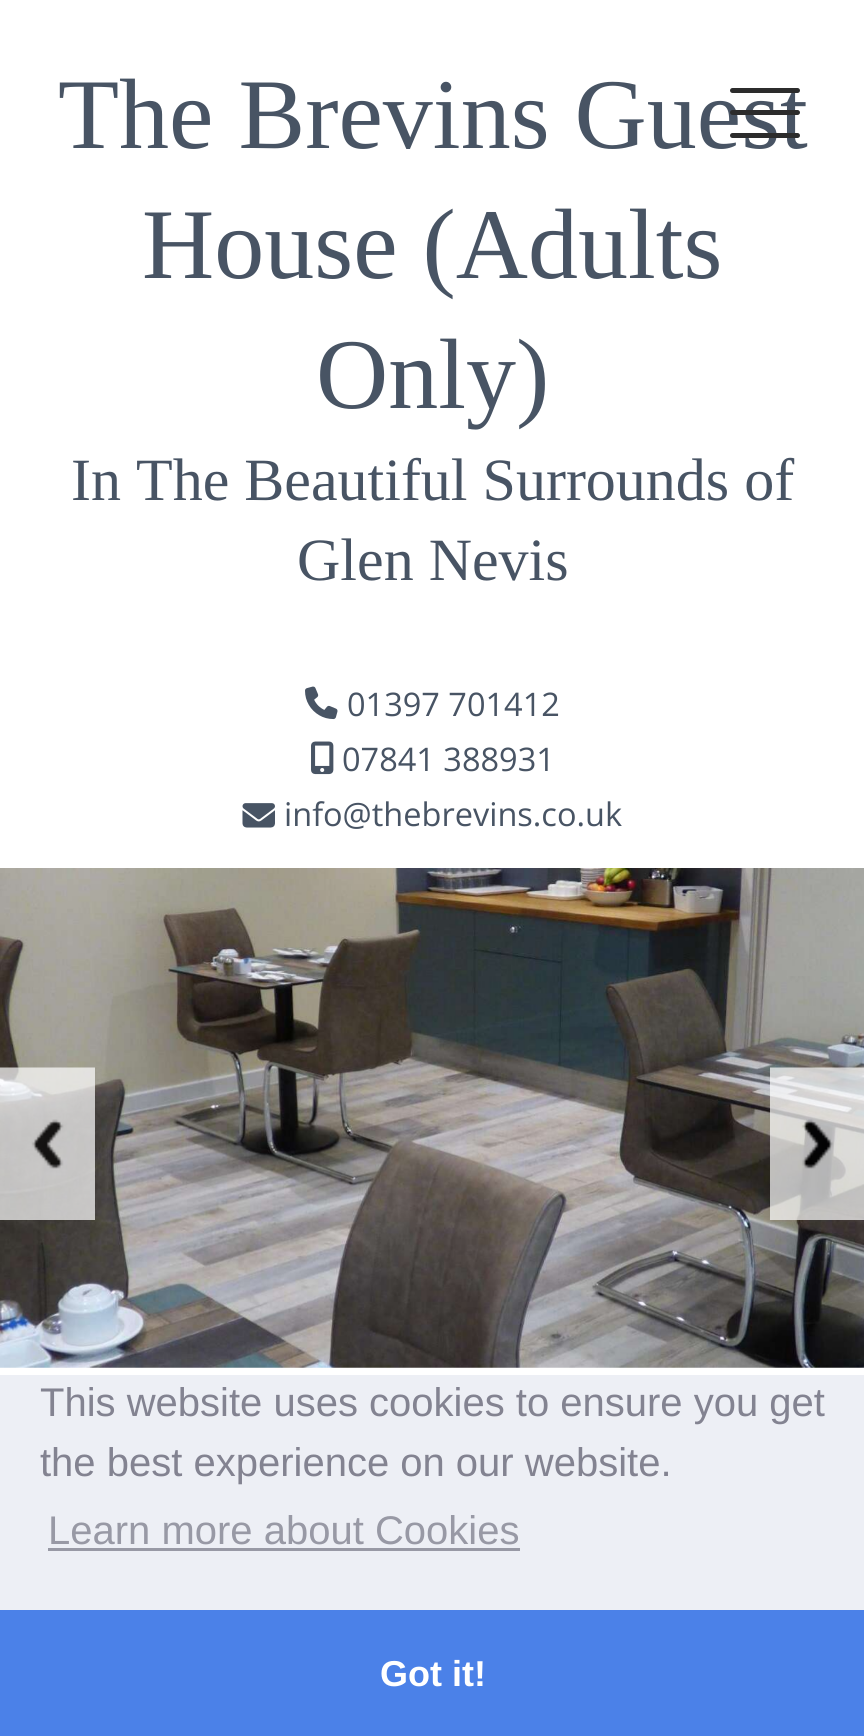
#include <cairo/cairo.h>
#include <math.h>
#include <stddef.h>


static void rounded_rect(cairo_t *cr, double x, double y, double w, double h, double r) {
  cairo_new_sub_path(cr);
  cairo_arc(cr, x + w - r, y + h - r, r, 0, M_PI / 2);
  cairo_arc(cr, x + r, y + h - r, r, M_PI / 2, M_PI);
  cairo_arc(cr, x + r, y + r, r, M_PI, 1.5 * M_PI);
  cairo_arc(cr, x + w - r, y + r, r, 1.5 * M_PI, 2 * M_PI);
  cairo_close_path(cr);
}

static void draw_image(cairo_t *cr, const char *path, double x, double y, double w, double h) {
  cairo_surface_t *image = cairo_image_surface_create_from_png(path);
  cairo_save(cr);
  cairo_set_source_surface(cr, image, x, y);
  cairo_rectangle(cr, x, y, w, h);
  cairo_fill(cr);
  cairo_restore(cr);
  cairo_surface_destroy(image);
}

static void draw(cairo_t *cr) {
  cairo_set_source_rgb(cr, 1, 1, 1);
  cairo_paint(cr);
  draw_image(cr, "images/1.png", 305, 686, 33, 34);
  draw_image(cr, "images/2.png", 311, 741, 23, 34);
  draw_image(cr, "images/3.png", 242, 803, 33, 25);
  draw_image(cr, "images/4.png", 0, 868, 864, 500);
  draw_image(cr, "images/5.png", 0, 1067, 95, 153);
  draw_image(cr, "images/6.png", 770, 1067, 94, 153);
  cairo_set_source_rgb(cr, 237 / 255.0, 239 / 255.0, 245 / 255.0);
  cairo_rectangle(cr, 0, 1375, 864, 235);
  cairo_fill(cr);
  cairo_set_source_rgb(cr, 152 / 255.0, 153 / 255.0, 165 / 255.0);
  cairo_rectangle(cr, 48, 1548, 472, 3);
  cairo_fill(cr);
  cairo_set_source_rgb(cr, 75 / 255.0, 129 / 255.0, 232 / 255.0);
  cairo_rectangle(cr, 0, 1610, 864, 126);
  cairo_fill(cr);
  cairo_select_font_face(cr, "Liberation Serif", CAIRO_FONT_SLANT_NORMAL, CAIRO_FONT_WEIGHT_NORMAL);
  cairo_set_font_size(cr, 100);
  cairo_set_source_rgb(cr, 72 / 255.0, 84 / 255.0, 100 / 255.0);
  cairo_move_to(cr, 58, 148);
  cairo_show_text(cr, "The Brevins Guest");
  cairo_move_to(cr, 142, 278);
  cairo_show_text(cr, "House (Adults");
  cairo_move_to(cr, 316, 408);
  cairo_show_text(cr, "Only)");
  cairo_set_font_size(cr, 60);
  cairo_move_to(cr, 71, 500);
  cairo_show_text(cr, "In The Beautiful Surrounds of");
  cairo_move_to(cr, 297, 580);
  cairo_show_text(cr, "Glen Nevis");
  cairo_set_source_rgb(cr, 44 / 255.0, 44 / 255.0, 44 / 255.0);
  rounded_rect(cr, 730, 88, 70, 5, 2.5);
  cairo_fill(cr);
  rounded_rect(cr, 730, 110, 70, 5, 2.5);
  cairo_fill(cr);
  rounded_rect(cr, 730, 133, 70, 5, 2.5);
  cairo_fill(cr);
  cairo_select_font_face(cr, "Open Sans", CAIRO_FONT_SLANT_NORMAL, CAIRO_FONT_WEIGHT_NORMAL);
  cairo_set_font_size(cr, 32.5);
  cairo_set_source_rgb(cr, 72 / 255.0, 84 / 255.0, 100 / 255.0);
  cairo_move_to(cr, 347, 716);
  cairo_show_text(cr, "01397 701412");
  cairo_move_to(cr, 342, 771);
  cairo_show_text(cr, "07841 388931");
  cairo_move_to(cr, 284, 826);
  cairo_show_text(cr, "info@thebrevins.co.uk");
  cairo_select_font_face(cr, "Liberation Sans", CAIRO_FONT_SLANT_NORMAL, CAIRO_FONT_WEIGHT_NORMAL);
  cairo_set_font_size(cr, 40);
  cairo_set_source_rgb(cr, 131 / 255.0, 131 / 255.0, 145 / 255.0);
  cairo_move_to(cr, 40, 1416);
  cairo_show_text(cr, "This website uses cookies to ensure you get");
  cairo_move_to(cr, 40, 1476);
  cairo_show_text(cr, "the best experience on our website.");
  cairo_set_source_rgb(cr, 152 / 255.0, 153 / 255.0, 165 / 255.0);
  cairo_move_to(cr, 48, 1544);
  cairo_show_text(cr, "Learn more about Cookies");
  cairo_select_font_face(cr, "Liberation Sans", CAIRO_FONT_SLANT_NORMAL, CAIRO_FONT_WEIGHT_BOLD);
  cairo_set_font_size(cr, 36);
  cairo_set_source_rgb(cr, 1, 1, 1);
  cairo_move_to(cr, 380, 1686);
  cairo_show_text(cr, "Got it!");
}

int main(void) {
  cairo_surface_t *surface = cairo_image_surface_create(CAIRO_FORMAT_RGB24, 864, 1736);
  cairo_t *cr = cairo_create(surface);
  cairo_font_options_t *options = cairo_font_options_create();
  cairo_font_options_set_hint_metrics(options, CAIRO_HINT_METRICS_OFF);
  cairo_font_options_set_hint_style(options, CAIRO_HINT_STYLE_NONE);
  cairo_set_font_options(cr, options);
  cairo_set_miter_limit(cr, 4);
  draw(cr);
  cairo_surface_write_to_png(surface, "out.png");
  cairo_font_options_destroy(options);
  cairo_destroy(cr);
  cairo_surface_destroy(surface);
  return 0;
}
